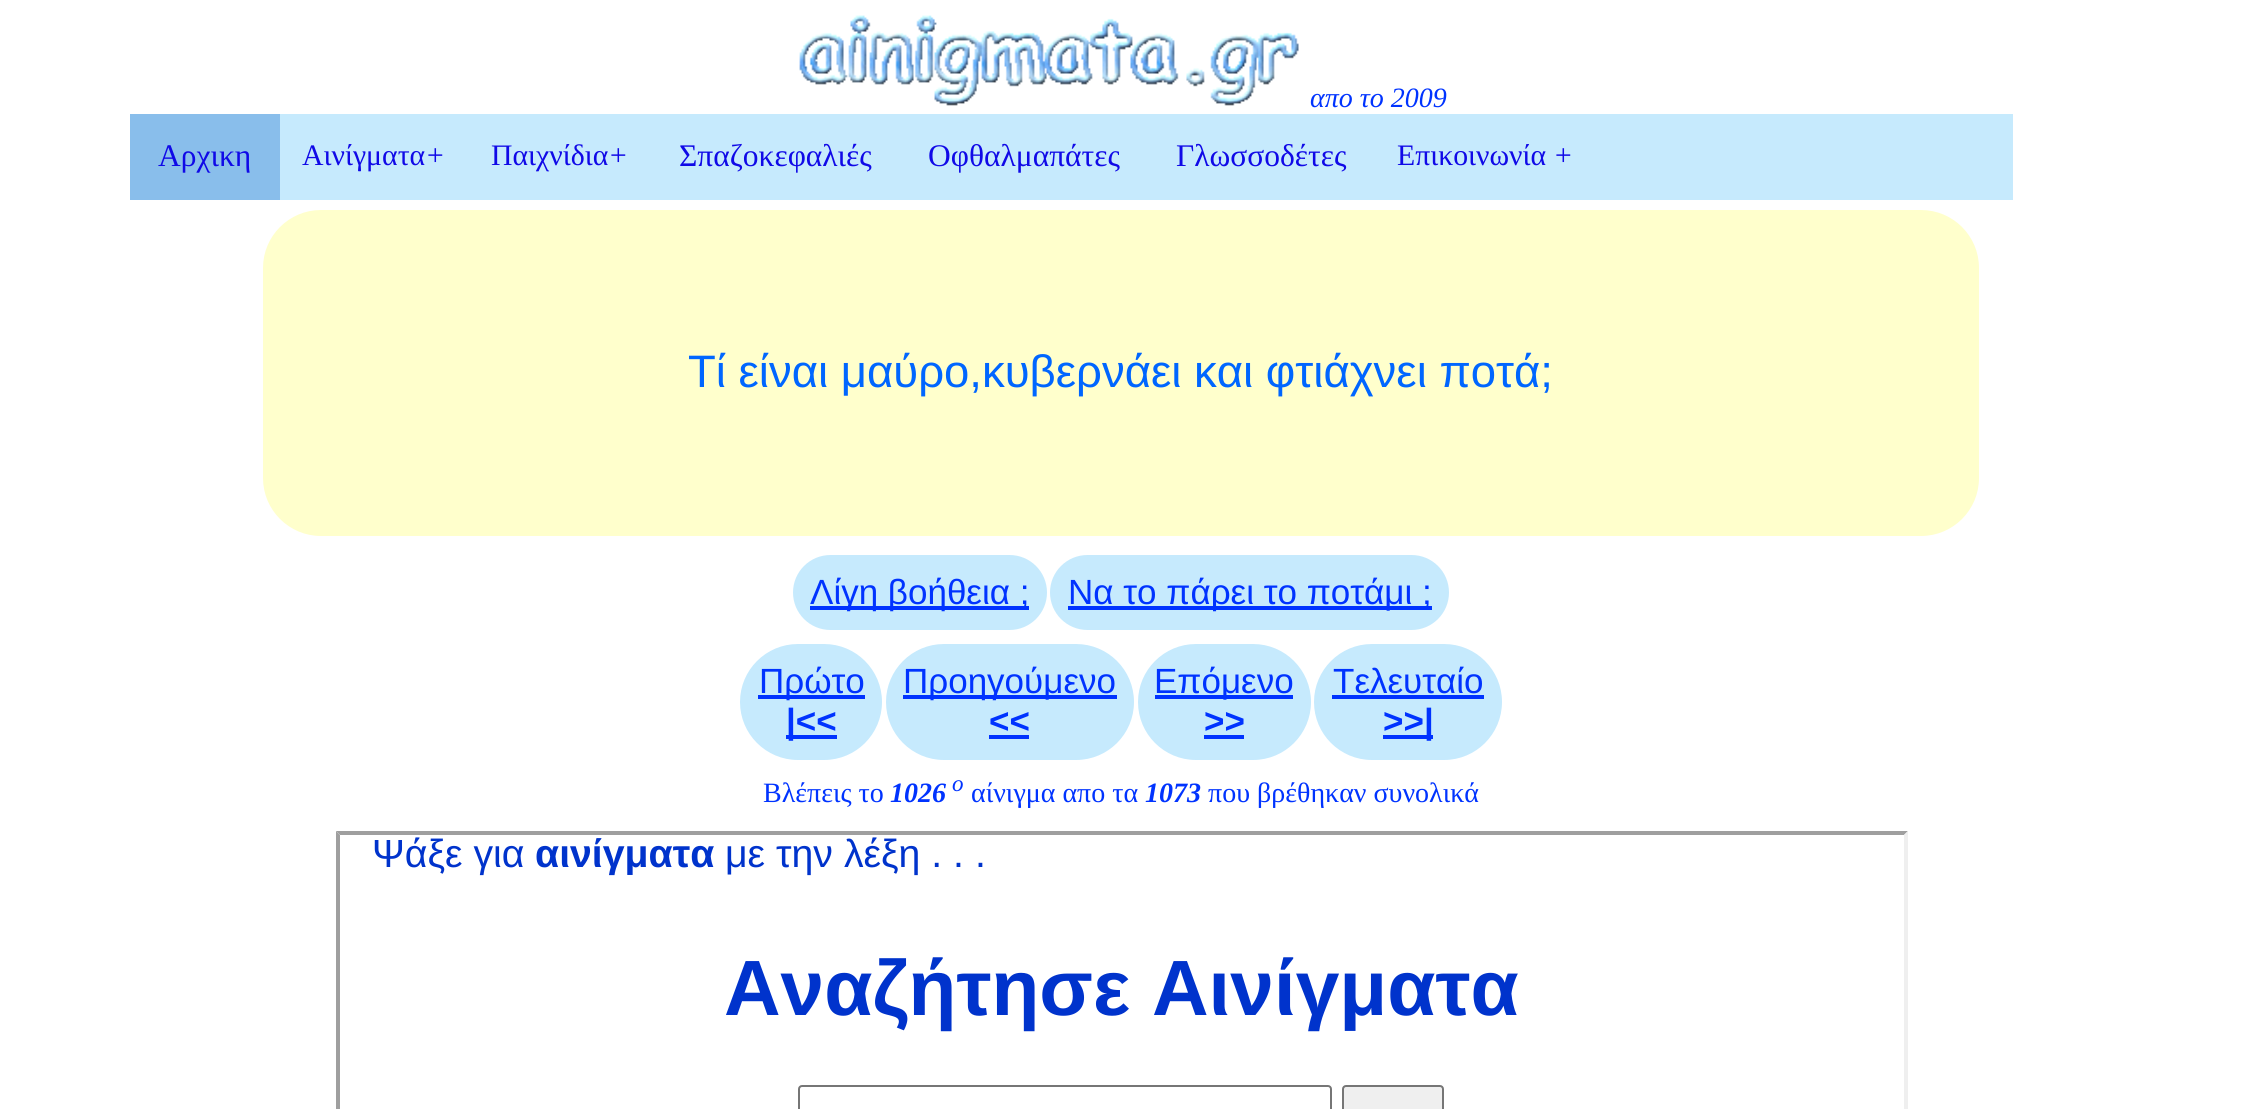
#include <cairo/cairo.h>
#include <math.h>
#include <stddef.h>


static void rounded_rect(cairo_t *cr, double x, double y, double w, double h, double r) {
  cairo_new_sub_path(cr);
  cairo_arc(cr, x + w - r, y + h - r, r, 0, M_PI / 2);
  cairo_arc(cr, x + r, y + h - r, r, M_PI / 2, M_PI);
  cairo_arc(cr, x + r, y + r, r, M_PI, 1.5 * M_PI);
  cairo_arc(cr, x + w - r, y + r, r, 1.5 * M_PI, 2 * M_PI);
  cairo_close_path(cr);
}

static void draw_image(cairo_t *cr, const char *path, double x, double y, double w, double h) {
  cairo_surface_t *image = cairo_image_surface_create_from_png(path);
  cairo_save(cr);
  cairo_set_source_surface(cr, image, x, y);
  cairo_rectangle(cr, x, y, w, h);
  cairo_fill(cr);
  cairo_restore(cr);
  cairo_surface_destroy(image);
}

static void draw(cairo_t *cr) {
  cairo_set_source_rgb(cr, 1, 1, 1);
  cairo_paint(cr);
  draw_image(cr, "images/1.png", 799, 15, 500, 91);
  cairo_set_source_rgb(cr, 198 / 255.0, 234 / 255.0, 253 / 255.0);
  cairo_rectangle(cr, 280, 114, 1733, 86);
  cairo_fill(cr);
  cairo_set_source_rgb(cr, 137 / 255.0, 190 / 255.0, 235 / 255.0);
  cairo_rectangle(cr, 130, 114, 150, 86);
  cairo_fill(cr);
  cairo_set_source_rgb(cr, 1, 1, 204 / 255.0);
  rounded_rect(cr, 263, 210, 1716, 326, 58);
  cairo_fill(cr);
  cairo_set_source_rgb(cr, 198 / 255.0, 234 / 255.0, 253 / 255.0);
  rounded_rect(cr, 793, 555, 254, 75, 37.5);
  cairo_fill(cr);
  cairo_set_source_rgb(cr, 0, 51 / 255.0, 1);
  cairo_rectangle(cr, 810, 606, 219, 4);
  cairo_fill(cr);
  cairo_set_source_rgb(cr, 198 / 255.0, 234 / 255.0, 253 / 255.0);
  rounded_rect(cr, 1050, 555, 399, 75, 37.5);
  cairo_fill(cr);
  cairo_set_source_rgb(cr, 0, 51 / 255.0, 1);
  cairo_rectangle(cr, 1068, 606, 364, 4);
  cairo_fill(cr);
  cairo_set_source_rgb(cr, 198 / 255.0, 234 / 255.0, 253 / 255.0);
  rounded_rect(cr, 740, 644, 142, 116, 58);
  cairo_fill(cr);
  cairo_set_source_rgb(cr, 0, 51 / 255.0, 1);
  cairo_rectangle(cr, 758, 695, 107, 4);
  cairo_fill(cr);
  cairo_rectangle(cr, 786, 735, 51, 4);
  cairo_fill(cr);
  cairo_set_source_rgb(cr, 198 / 255.0, 234 / 255.0, 253 / 255.0);
  rounded_rect(cr, 886, 644, 248, 116, 58);
  cairo_fill(cr);
  cairo_set_source_rgb(cr, 0, 51 / 255.0, 1);
  cairo_rectangle(cr, 903, 695, 214, 4);
  cairo_fill(cr);
  cairo_rectangle(cr, 989, 735, 40, 4);
  cairo_fill(cr);
  cairo_set_source_rgb(cr, 198 / 255.0, 234 / 255.0, 253 / 255.0);
  rounded_rect(cr, 1138, 644, 173, 116, 58);
  cairo_fill(cr);
  cairo_set_source_rgb(cr, 0, 51 / 255.0, 1);
  cairo_rectangle(cr, 1155, 695, 138, 4);
  cairo_fill(cr);
  cairo_rectangle(cr, 1204, 735, 40, 4);
  cairo_fill(cr);
  cairo_set_source_rgb(cr, 198 / 255.0, 234 / 255.0, 253 / 255.0);
  rounded_rect(cr, 1314, 644, 188, 116, 58);
  cairo_fill(cr);
  cairo_set_source_rgb(cr, 0, 51 / 255.0, 1);
  cairo_rectangle(cr, 1332, 695, 152, 4);
  cairo_fill(cr);
  cairo_rectangle(cr, 1383, 735, 50, 4);
  cairo_fill(cr);
  cairo_set_source_rgb(cr, 159 / 255.0, 159 / 255.0, 159 / 255.0);
  cairo_new_path(cr);
  cairo_move_to(cr, 336, 831);
  cairo_line_to(cr, 1908, 831);
  cairo_line_to(cr, 1904, 835);
  cairo_line_to(cr, 340, 835);
  cairo_close_path(cr);
  cairo_fill(cr);
  cairo_set_source_rgb(cr, 239 / 255.0, 239 / 255.0, 239 / 255.0);
  cairo_new_path(cr);
  cairo_move_to(cr, 1908, 831);
  cairo_line_to(cr, 1908, 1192);
  cairo_line_to(cr, 1904, 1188);
  cairo_line_to(cr, 1904, 835);
  cairo_close_path(cr);
  cairo_fill(cr);
  cairo_set_source_rgb(cr, 159 / 255.0, 159 / 255.0, 159 / 255.0);
  cairo_new_path(cr);
  cairo_move_to(cr, 336, 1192);
  cairo_line_to(cr, 336, 831);
  cairo_line_to(cr, 340, 835);
  cairo_line_to(cr, 340, 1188);
  cairo_close_path(cr);
  cairo_fill(cr);
  rounded_rect(cr, 799, 1086, 532, 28, 3);
  cairo_set_source_rgb(cr, 118 / 255.0, 118 / 255.0, 118 / 255.0);
  cairo_stroke(cr);
  cairo_set_source_rgb(cr, 239 / 255.0, 239 / 255.0, 239 / 255.0);
  rounded_rect(cr, 1343, 1086, 100, 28, 3);
  cairo_fill_preserve(cr);
  cairo_set_source_rgb(cr, 118 / 255.0, 118 / 255.0, 118 / 255.0);
  cairo_stroke(cr);
  cairo_select_font_face(cr, "Liberation Serif", CAIRO_FONT_SLANT_ITALIC, CAIRO_FONT_WEIGHT_NORMAL);
  cairo_set_font_size(cr, 28);
  cairo_set_source_rgb(cr, 0, 51 / 255.0, 1);
  cairo_move_to(cr, 1310, 107);
  cairo_show_text(cr, "απο το 2009");
  cairo_select_font_face(cr, "Liberation Serif", CAIRO_FONT_SLANT_NORMAL, CAIRO_FONT_WEIGHT_NORMAL);
  cairo_set_font_size(cr, 31.5);
  cairo_set_source_rgb(cr, 16 / 255.0, 9 / 255.0, 231 / 255.0);
  cairo_move_to(cr, 158, 166);
  cairo_show_text(cr, "Αρχικη");
  cairo_set_font_size(cr, 29.75);
  cairo_move_to(cr, 302, 165);
  cairo_show_text(cr, "Αινίγματα");
  cairo_select_font_face(cr, "Liberation Serif", CAIRO_FONT_SLANT_ITALIC, CAIRO_FONT_WEIGHT_NORMAL);
  cairo_move_to(cr, 425, 165);
  cairo_show_text(cr, "+");
  cairo_select_font_face(cr, "Liberation Serif", CAIRO_FONT_SLANT_NORMAL, CAIRO_FONT_WEIGHT_NORMAL);
  cairo_move_to(cr, 491, 165);
  cairo_show_text(cr, "Παιχνίδια");
  cairo_select_font_face(cr, "Liberation Serif", CAIRO_FONT_SLANT_ITALIC, CAIRO_FONT_WEIGHT_NORMAL);
  cairo_move_to(cr, 608, 165);
  cairo_show_text(cr, "+");
  cairo_select_font_face(cr, "Liberation Serif", CAIRO_FONT_SLANT_NORMAL, CAIRO_FONT_WEIGHT_NORMAL);
  cairo_set_font_size(cr, 31.5);
  cairo_move_to(cr, 679, 166);
  cairo_show_text(cr, "Σπαζοκεφαλιές");
  cairo_move_to(cr, 928, 166);
  cairo_show_text(cr, "Οφθαλμαπάτες");
  cairo_move_to(cr, 1176, 166);
  cairo_show_text(cr, "Γλωσσοδέτες");
  cairo_set_font_size(cr, 29.75);
  cairo_move_to(cr, 1397, 165);
  cairo_show_text(cr, "Επικοινωνία");
  cairo_select_font_face(cr, "Liberation Serif", CAIRO_FONT_SLANT_ITALIC, CAIRO_FONT_WEIGHT_NORMAL);
  cairo_move_to(cr, 1553, 165);
  cairo_show_text(cr, "+");
  cairo_select_font_face(cr, "Liberation Sans", CAIRO_FONT_SLANT_NORMAL, CAIRO_FONT_WEIGHT_NORMAL);
  cairo_set_font_size(cr, 45.5);
  cairo_set_source_rgb(cr, 0, 102 / 255.0, 1);
  cairo_move_to(cr, 688, 387);
  cairo_show_text(cr, "Τί είναι μαύρο,κυβερνάει και φτιάχνει ποτά;");
  cairo_set_font_size(cr, 35);
  cairo_set_source_rgb(cr, 0, 51 / 255.0, 1);
  cairo_move_to(cr, 810, 604);
  cairo_show_text(cr, "Λίγη βοήθεια ;");
  cairo_move_to(cr, 1068, 604);
  cairo_show_text(cr, "Να το πάρει το ποτάμι ;");
  cairo_move_to(cr, 759, 693);
  cairo_show_text(cr, "Πρώτο");
  cairo_select_font_face(cr, "Liberation Sans", CAIRO_FONT_SLANT_NORMAL, CAIRO_FONT_WEIGHT_BOLD);
  cairo_move_to(cr, 786, 733);
  cairo_show_text(cr, "|<<");
  cairo_select_font_face(cr, "Liberation Sans", CAIRO_FONT_SLANT_NORMAL, CAIRO_FONT_WEIGHT_NORMAL);
  cairo_move_to(cr, 903, 693);
  cairo_show_text(cr, "Προηγούμενο");
  cairo_select_font_face(cr, "Liberation Sans", CAIRO_FONT_SLANT_NORMAL, CAIRO_FONT_WEIGHT_BOLD);
  cairo_move_to(cr, 989, 733);
  cairo_show_text(cr, "<<");
  cairo_select_font_face(cr, "Liberation Sans", CAIRO_FONT_SLANT_NORMAL, CAIRO_FONT_WEIGHT_NORMAL);
  cairo_move_to(cr, 1154, 693);
  cairo_show_text(cr, "Επόμενο");
  cairo_select_font_face(cr, "Liberation Sans", CAIRO_FONT_SLANT_NORMAL, CAIRO_FONT_WEIGHT_BOLD);
  cairo_move_to(cr, 1204, 733);
  cairo_show_text(cr, ">>");
  cairo_select_font_face(cr, "Liberation Sans", CAIRO_FONT_SLANT_NORMAL, CAIRO_FONT_WEIGHT_NORMAL);
  cairo_move_to(cr, 1333, 693);
  cairo_show_text(cr, "Τελευταίο");
  cairo_select_font_face(cr, "Liberation Sans", CAIRO_FONT_SLANT_NORMAL, CAIRO_FONT_WEIGHT_BOLD);
  cairo_move_to(cr, 1383, 733);
  cairo_show_text(cr, ">>|");
  cairo_select_font_face(cr, "Liberation Serif", CAIRO_FONT_SLANT_NORMAL, CAIRO_FONT_WEIGHT_NORMAL);
  cairo_set_font_size(cr, 28);
  cairo_move_to(cr, 763, 802);
  cairo_show_text(cr, "Βλέπεις το");
  cairo_select_font_face(cr, "Liberation Serif", CAIRO_FONT_SLANT_ITALIC, CAIRO_FONT_WEIGHT_BOLD);
  cairo_move_to(cr, 890, 802);
  cairo_show_text(cr, "1026");
  cairo_select_font_face(cr, "Liberation Serif", CAIRO_FONT_SLANT_ITALIC, CAIRO_FONT_WEIGHT_NORMAL);
  cairo_set_font_size(cr, 23);
  cairo_move_to(cr, 952, 791);
  cairo_show_text(cr, "ο");
  cairo_select_font_face(cr, "Liberation Serif", CAIRO_FONT_SLANT_NORMAL, CAIRO_FONT_WEIGHT_NORMAL);
  cairo_set_font_size(cr, 28);
  cairo_move_to(cr, 971, 802);
  cairo_show_text(cr, "αίνιγμα απο τα");
  cairo_select_font_face(cr, "Liberation Serif", CAIRO_FONT_SLANT_ITALIC, CAIRO_FONT_WEIGHT_BOLD);
  cairo_move_to(cr, 1145, 802);
  cairo_show_text(cr, "1073");
  cairo_select_font_face(cr, "Liberation Serif", CAIRO_FONT_SLANT_NORMAL, CAIRO_FONT_WEIGHT_NORMAL);
  cairo_move_to(cr, 1208, 802);
  cairo_show_text(cr, "που βρέθηκαν συνολικά");
  cairo_select_font_face(cr, "Liberation Sans", CAIRO_FONT_SLANT_NORMAL, CAIRO_FONT_WEIGHT_NORMAL);
  cairo_set_font_size(cr, 39.25);
  cairo_set_source_rgb(cr, 0, 51 / 255.0, 204 / 255.0);
  cairo_move_to(cr, 372, 867);
  cairo_show_text(cr, "Ψάξε για");
  cairo_select_font_face(cr, "Liberation Sans", CAIRO_FONT_SLANT_NORMAL, CAIRO_FONT_WEIGHT_BOLD);
  cairo_move_to(cr, 535, 867);
  cairo_show_text(cr, "αινίγματα");
  cairo_select_font_face(cr, "Liberation Sans", CAIRO_FONT_SLANT_NORMAL, CAIRO_FONT_WEIGHT_NORMAL);
  cairo_move_to(cr, 725, 867);
  cairo_show_text(cr, "με την λέξη . . .");
  cairo_select_font_face(cr, "Liberation Sans", CAIRO_FONT_SLANT_NORMAL, CAIRO_FONT_WEIGHT_BOLD);
  cairo_set_font_size(cr, 78.4);
  cairo_move_to(cr, 724, 1015);
  cairo_show_text(cr, "Αναζήτησε Αινίγματα");
}

int main(void) {
  cairo_surface_t *surface = cairo_image_surface_create(CAIRO_FORMAT_RGB24, 2241, 1109);
  cairo_t *cr = cairo_create(surface);
  cairo_font_options_t *options = cairo_font_options_create();
  cairo_font_options_set_hint_metrics(options, CAIRO_HINT_METRICS_OFF);
  cairo_font_options_set_hint_style(options, CAIRO_HINT_STYLE_NONE);
  cairo_set_font_options(cr, options);
  cairo_set_miter_limit(cr, 4);
  draw(cr);
  cairo_surface_write_to_png(surface, "out.png");
  cairo_font_options_destroy(options);
  cairo_destroy(cr);
  cairo_surface_destroy(surface);
  return 0;
}
